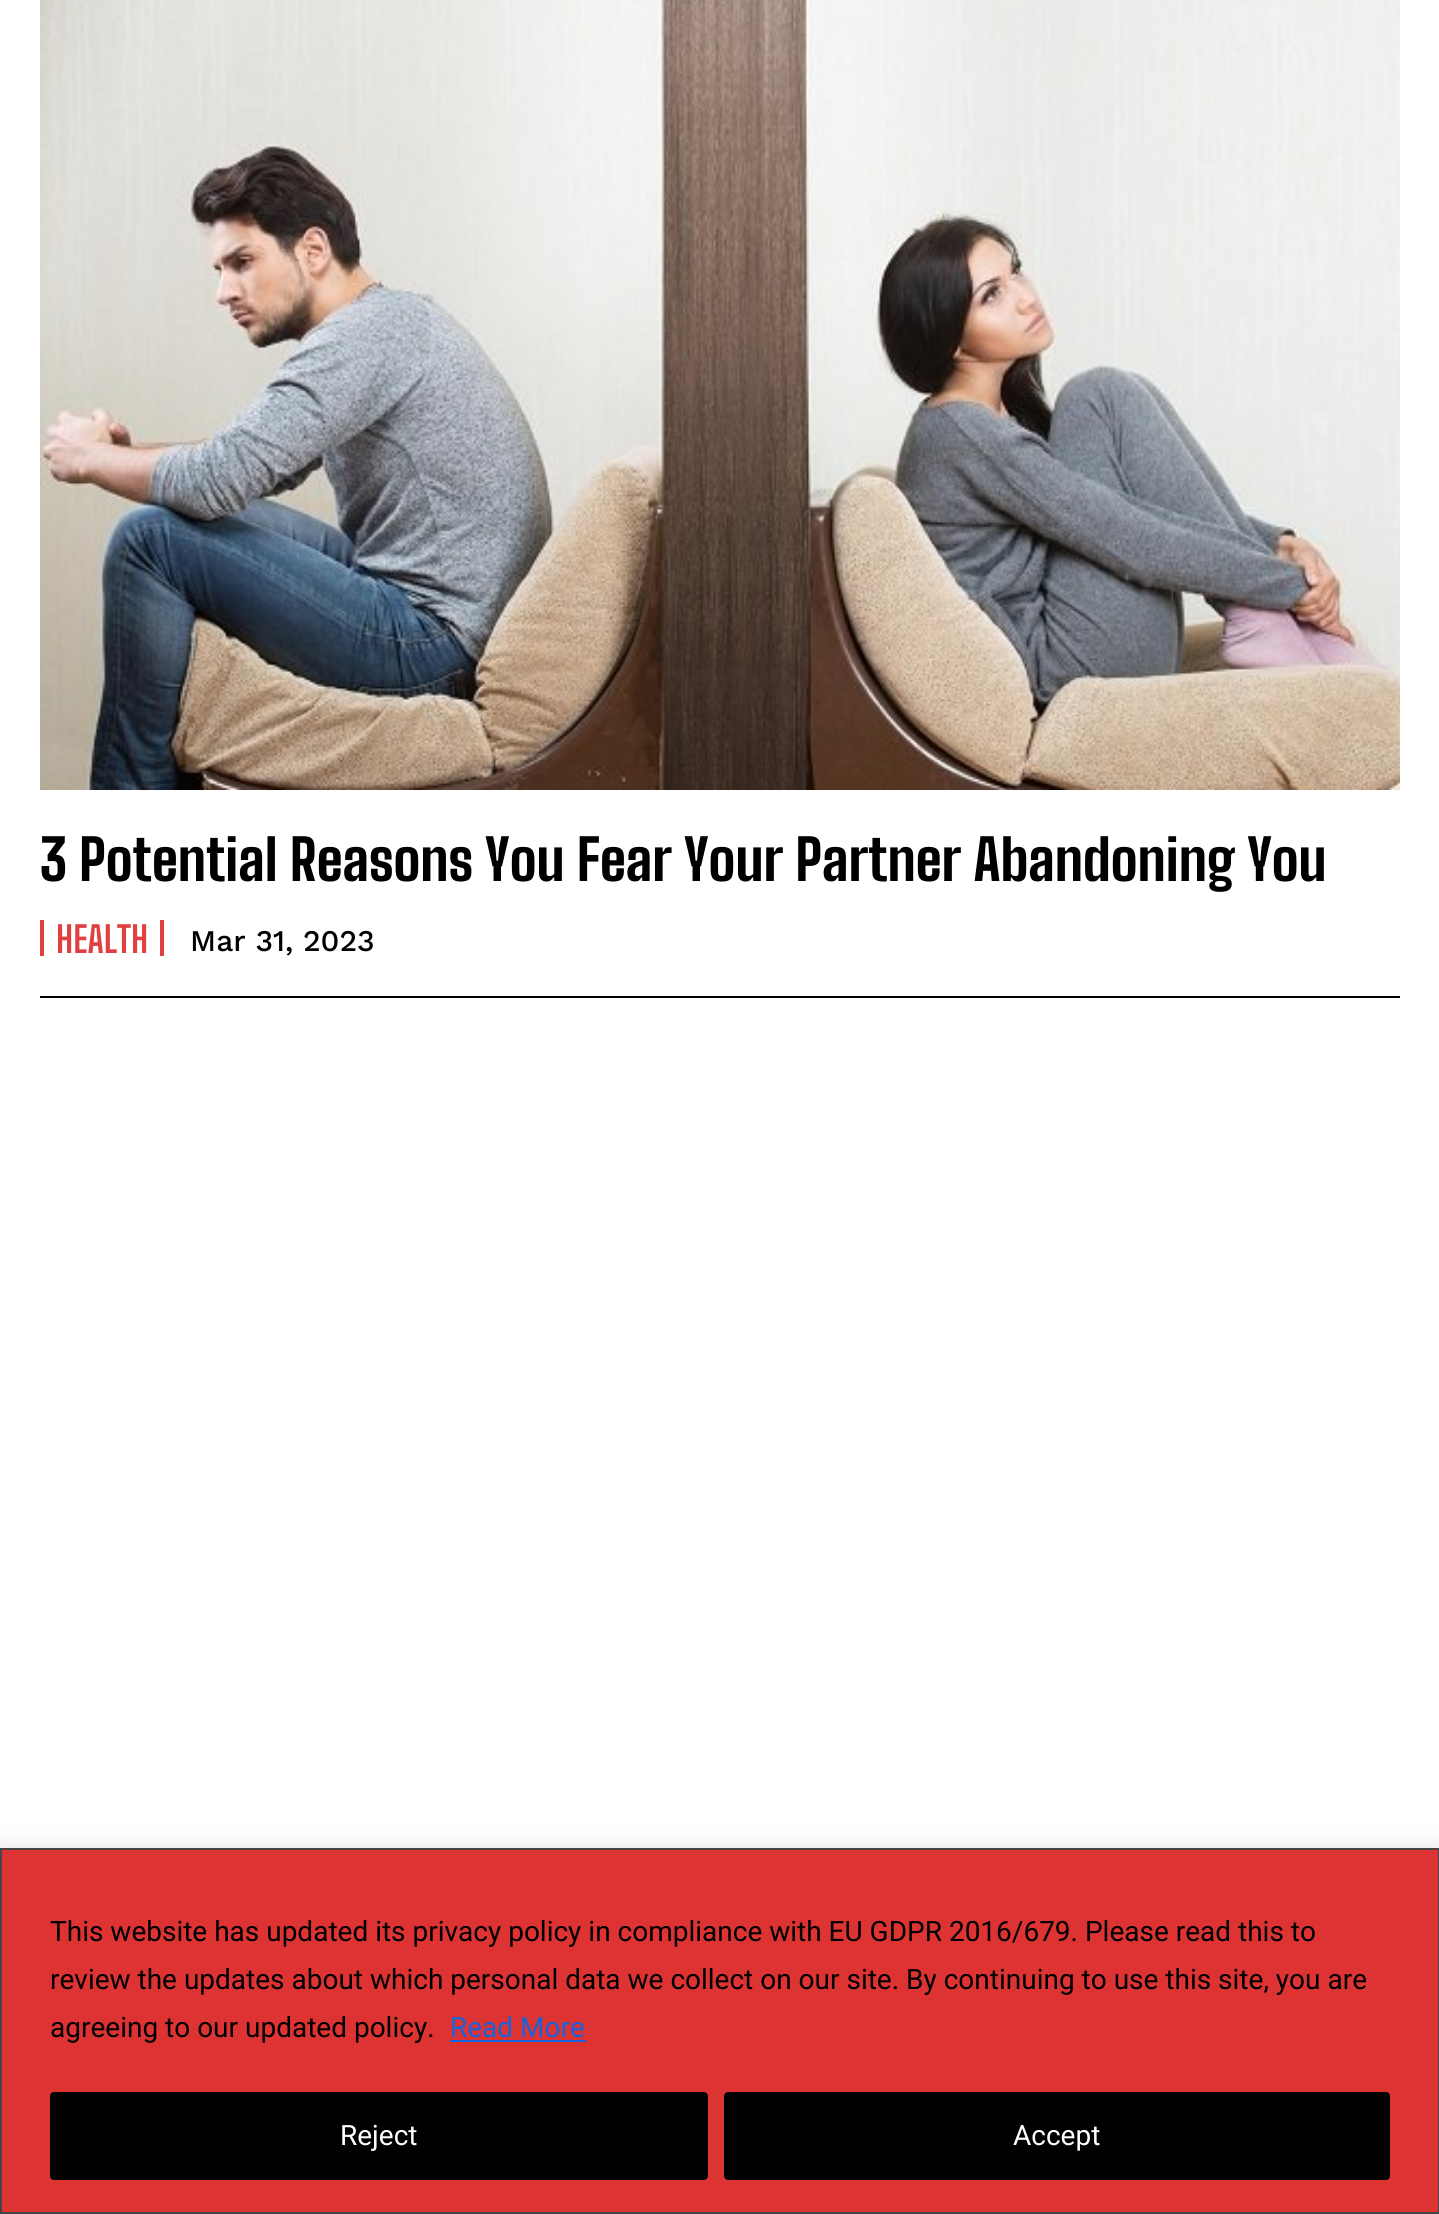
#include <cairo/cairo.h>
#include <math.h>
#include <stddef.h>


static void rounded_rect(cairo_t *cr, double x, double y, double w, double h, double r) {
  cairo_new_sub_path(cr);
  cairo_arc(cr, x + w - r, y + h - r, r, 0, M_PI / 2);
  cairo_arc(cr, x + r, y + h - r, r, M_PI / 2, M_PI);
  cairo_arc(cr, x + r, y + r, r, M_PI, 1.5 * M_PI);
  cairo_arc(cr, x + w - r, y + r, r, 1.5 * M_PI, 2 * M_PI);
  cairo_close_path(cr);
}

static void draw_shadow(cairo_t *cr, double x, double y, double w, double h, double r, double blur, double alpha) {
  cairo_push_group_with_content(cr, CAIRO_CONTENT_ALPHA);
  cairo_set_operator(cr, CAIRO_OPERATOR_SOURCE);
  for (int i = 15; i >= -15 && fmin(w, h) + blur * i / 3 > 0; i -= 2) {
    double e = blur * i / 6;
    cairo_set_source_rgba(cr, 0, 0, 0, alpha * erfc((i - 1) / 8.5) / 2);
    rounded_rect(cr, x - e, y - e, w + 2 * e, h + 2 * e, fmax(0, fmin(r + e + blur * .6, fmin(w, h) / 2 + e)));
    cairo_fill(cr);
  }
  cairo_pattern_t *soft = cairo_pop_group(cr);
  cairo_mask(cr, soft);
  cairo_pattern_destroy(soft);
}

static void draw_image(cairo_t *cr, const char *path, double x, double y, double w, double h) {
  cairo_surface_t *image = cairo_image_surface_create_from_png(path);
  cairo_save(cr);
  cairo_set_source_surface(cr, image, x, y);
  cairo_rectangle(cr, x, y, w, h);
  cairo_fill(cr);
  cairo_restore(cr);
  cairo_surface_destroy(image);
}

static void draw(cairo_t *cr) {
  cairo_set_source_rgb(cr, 1, 1, 1);
  cairo_paint(cr);
  cairo_set_source_rgb(cr, 0, 0, 0);
  cairo_rectangle(cr, 40, 996, 1360, 2);
  cairo_fill(cr);
  draw_image(cr, "images/1.png", 40, 0, 1360, 790);
  cairo_set_source_rgb(cr, 224 / 255.0, 64 / 255.0, 64 / 255.0);
  cairo_rectangle(cr, 160, 920, 4, 36);
  cairo_fill(cr);
  cairo_rectangle(cr, 40, 920, 4, 36);
  cairo_fill(cr);
  cairo_set_source_rgb(cr, 172 / 255.0, 171 / 255.0, 171 / 255.0);
  draw_shadow(cr, 0, 1846, 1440, 366, 0, 10, 0.3);
  cairo_set_source_rgb(cr, 221 / 255.0, 51 / 255.0, 51 / 255.0);
  cairo_rectangle(cr, 1, 1849, 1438, 364);
  cairo_fill_preserve(cr);
  cairo_set_source_rgb(cr, 68 / 255.0, 68 / 255.0, 68 / 255.0);
  cairo_stroke(cr);
  cairo_set_source_rgb(cr, 24 / 255.0, 99 / 255.0, 220 / 255.0);
  cairo_rectangle(cr, 450, 2040, 136, 2);
  cairo_fill(cr);
  cairo_set_source_rgb(cr, 0, 0, 0);
  rounded_rect(cr, 52, 2094, 654, 84, 2);
  cairo_fill_preserve(cr);
  cairo_set_line_width(cr, 4);
  cairo_stroke(cr);
  rounded_rect(cr, 726, 2094, 662, 84, 2);
  cairo_fill_preserve(cr);
  cairo_stroke(cr);
  cairo_select_font_face(cr, "Big Shoulders Text ExtraBold", CAIRO_FONT_SLANT_NORMAL, CAIRO_FONT_WEIGHT_NORMAL);
  cairo_set_font_size(cr, 56);
  cairo_move_to(cr, 40, 881);
  cairo_show_text(cr, "3 Potential Reasons You Fear Your Partner Abandoning You");
  cairo_select_font_face(cr, "Big Shoulders Text", CAIRO_FONT_SLANT_NORMAL, CAIRO_FONT_WEIGHT_BOLD);
  cairo_set_font_size(cr, 36);
  cairo_set_source_rgb(cr, 224 / 255.0, 64 / 255.0, 64 / 255.0);
  cairo_move_to(cr, 56, 953);
  cairo_show_text(cr, "HEALTH");
  cairo_select_font_face(cr, "Work Sans Medium", CAIRO_FONT_SLANT_NORMAL, CAIRO_FONT_WEIGHT_NORMAL);
  cairo_set_font_size(cr, 30);
  cairo_set_source_rgb(cr, 0, 0, 0);
  cairo_move_to(cr, 190, 951);
  cairo_show_text(cr, "Mar 31, 2023");
  cairo_select_font_face(cr, "Roboto", CAIRO_FONT_SLANT_NORMAL, CAIRO_FONT_WEIGHT_NORMAL);
  cairo_set_font_size(cr, 28);
  cairo_move_to(cr, 50, 1941);
  cairo_show_text(cr, "This website has updated its privacy policy in compliance with EU GDPR 2016/679. Please read this to");
  cairo_move_to(cr, 50, 1989);
  cairo_show_text(cr, "review the updates about which personal data we collect on our site. By continuing to use this site, you are");
  cairo_move_to(cr, 50, 2037);
  cairo_show_text(cr, "agreeing to our updated policy.");
  cairo_set_source_rgb(cr, 24 / 255.0, 99 / 255.0, 220 / 255.0);
  cairo_move_to(cr, 450, 2037);
  cairo_show_text(cr, "Read More");
  cairo_set_source_rgb(cr, 1, 1, 1);
  cairo_move_to(cr, 340, 2145);
  cairo_show_text(cr, "Reject");
  cairo_move_to(cr, 1013, 2145);
  cairo_show_text(cr, "Accept");
}

int main(void) {
  cairo_surface_t *surface = cairo_image_surface_create(CAIRO_FORMAT_RGB24, 1439, 2214);
  cairo_t *cr = cairo_create(surface);
  cairo_font_options_t *options = cairo_font_options_create();
  cairo_font_options_set_hint_metrics(options, CAIRO_HINT_METRICS_OFF);
  cairo_font_options_set_hint_style(options, CAIRO_HINT_STYLE_NONE);
  cairo_set_font_options(cr, options);
  cairo_set_miter_limit(cr, 4);
  draw(cr);
  cairo_surface_write_to_png(surface, "out.png");
  cairo_font_options_destroy(options);
  cairo_destroy(cr);
  cairo_surface_destroy(surface);
  return 0;
}
